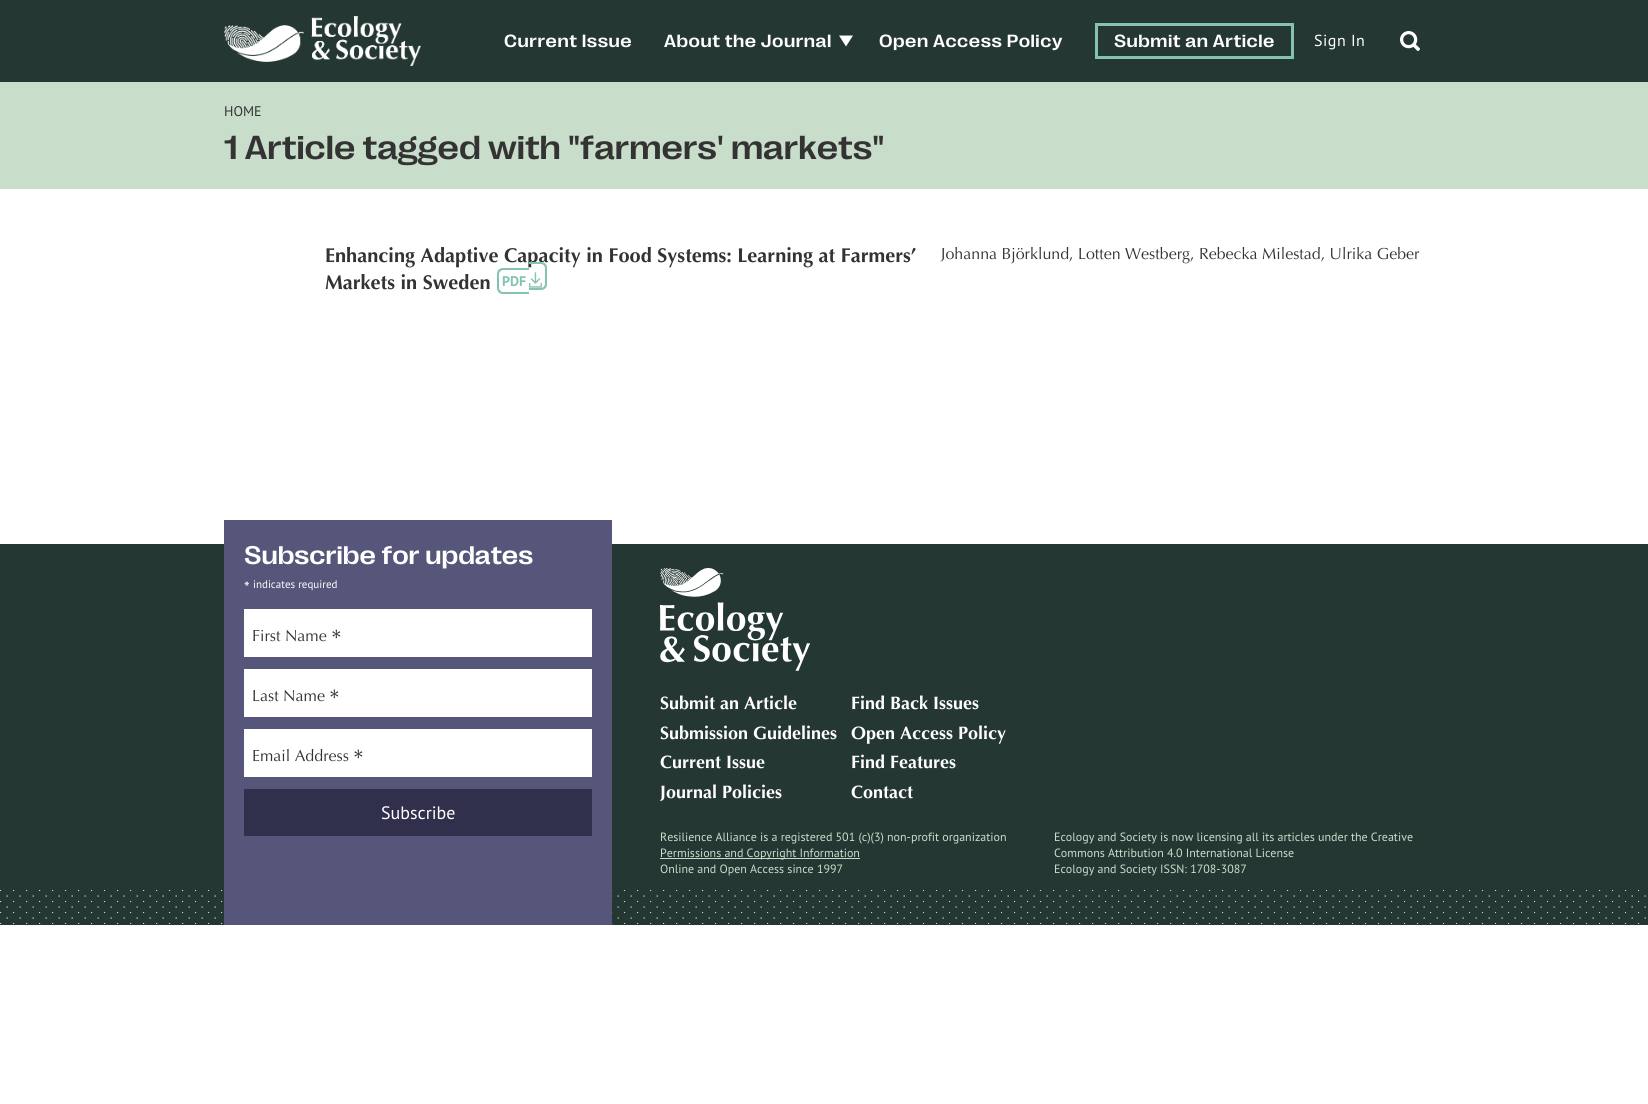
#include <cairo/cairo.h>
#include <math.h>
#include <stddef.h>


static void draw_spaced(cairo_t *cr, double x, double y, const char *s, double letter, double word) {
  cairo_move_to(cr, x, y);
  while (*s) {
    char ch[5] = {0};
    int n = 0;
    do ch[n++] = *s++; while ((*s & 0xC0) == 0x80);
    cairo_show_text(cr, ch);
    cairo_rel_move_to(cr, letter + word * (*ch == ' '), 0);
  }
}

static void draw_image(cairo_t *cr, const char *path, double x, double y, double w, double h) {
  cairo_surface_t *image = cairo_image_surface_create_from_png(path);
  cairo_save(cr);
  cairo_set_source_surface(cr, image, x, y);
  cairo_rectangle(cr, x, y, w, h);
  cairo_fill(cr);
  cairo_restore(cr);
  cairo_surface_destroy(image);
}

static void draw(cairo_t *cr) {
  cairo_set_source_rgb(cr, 1, 1, 1);
  cairo_paint(cr);
  cairo_set_source_rgb(cr, 37 / 255.0, 55 / 255.0, 51 / 255.0);
  cairo_rectangle(cr, 0, 0, 1648, 82);
  cairo_fill(cr);
  draw_image(cr, "images/1.png", 224, 16, 197, 50);
  cairo_set_source_rgb(cr, 1, 1, 1);
  cairo_new_path(cr);
  cairo_move_to(cr, 839, 35.5);
  cairo_line_to(cr, 853, 35.5);
  cairo_line_to(cr, 846, 46.5);
  cairo_close_path(cr);
  cairo_fill(cr);
  cairo_rectangle(cr, 1096.5, 24.5, 196, 33);
  cairo_set_source_rgb(cr, 132 / 255.0, 194 / 255.0, 178 / 255.0);
  cairo_set_line_width(cr, 3);
  cairo_stroke(cr);
  draw_image(cr, "images/2.png", 1400, 31, 20, 20);
  cairo_set_source_rgb(cr, 201 / 255.0, 222 / 255.0, 202 / 255.0);
  cairo_rectangle(cr, 0, 82, 1648, 107);
  cairo_fill(cr);
  cairo_set_source_rgb(cr, 37 / 255.0, 55 / 255.0, 51 / 255.0);
  cairo_rectangle(cr, 0, 544, 1648, 381);
  cairo_fill(cr);
  draw_image(cr, "images/5.png", 0, 890, 1646, 35);
  cairo_set_source_rgb(cr, 85 / 255.0, 86 / 255.0, 122 / 255.0);
  cairo_rectangle(cr, 224, 520, 388, 405);
  cairo_fill(cr);
  cairo_set_source_rgb(cr, 1, 1, 1);
  cairo_rectangle(cr, 244, 609, 348, 48);
  cairo_fill(cr);
  cairo_rectangle(cr, 244, 669, 348, 48);
  cairo_fill(cr);
  cairo_rectangle(cr, 244, 729, 348, 48);
  cairo_fill(cr);
  cairo_set_source_rgb(cr, 48 / 255.0, 48 / 255.0, 76 / 255.0);
  cairo_rectangle(cr, 244, 789, 348, 47);
  cairo_fill(cr);
  draw_image(cr, "images/4.png", 660, 568, 150, 103);
  cairo_set_source_rgb(cr, 201 / 255.0, 222 / 255.0, 202 / 255.0);
  cairo_rectangle(cr, 660, 858, 200, 1);
  cairo_fill(cr);
  cairo_select_font_face(cr, "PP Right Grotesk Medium", CAIRO_FONT_SLANT_NORMAL, CAIRO_FONT_WEIGHT_NORMAL);
  cairo_set_font_size(cr, 18);
  cairo_set_source_rgb(cr, 1, 1, 1);
  draw_spaced(cr, 504, 47, "Current Issue", 0.5, 0);
  draw_spaced(cr, 664, 47, "About the Journal", 0.5, 0);
  draw_spaced(cr, 879, 47, "Open Access Policy", 0.5, 0);
  draw_spaced(cr, 1114, 47, "Submit an Article", 0.5, 0);
  cairo_select_font_face(cr, "PT Sans", CAIRO_FONT_SLANT_NORMAL, CAIRO_FONT_WEIGHT_NORMAL);
  cairo_set_font_size(cr, 16);
  draw_spaced(cr, 1314, 46, "Sign In", 0.5, 0);
  cairo_set_font_size(cr, 14);
  cairo_set_source_rgb(cr, 51 / 255.0, 51 / 255.0, 51 / 255.0);
  cairo_move_to(cr, 224, 116);
  cairo_show_text(cr, "HOME");
  cairo_select_font_face(cr, "PP Right Grotesk Medium", CAIRO_FONT_SLANT_NORMAL, CAIRO_FONT_WEIGHT_NORMAL);
  cairo_set_font_size(cr, 34);
  cairo_move_to(cr, 224, 159);
  cairo_show_text(cr, "1 Article tagged with \"farmers' markets\"");
  cairo_select_font_face(cr, "Optima", CAIRO_FONT_SLANT_NORMAL, CAIRO_FONT_WEIGHT_BOLD);
  cairo_set_font_size(cr, 20);
  cairo_move_to(cr, 325, 262);
  cairo_show_text(cr, "Enhancing Adaptive Capacity in Food Systems: Learning at Farmers’");
  cairo_move_to(cr, 325, 289);
  cairo_show_text(cr, "Markets in Sweden");
  cairo_set_source_rgb(cr, 132 / 255.0, 194 / 255.0, 178 / 255.0);
  cairo_set_fill_rule(cr, CAIRO_FILL_RULE_EVEN_ODD);
  cairo_new_path(cr);
  cairo_move_to(cr, 503, 268);
  cairo_line_to(cr, 529, 268);
  cairo_line_to(cr, 529, 294);
  cairo_line_to(cr, 503, 294);
  cairo_curve_to(cr, 499.5, 294, 497, 291.5, 497, 288);
  cairo_line_to(cr, 497, 274);
  cairo_curve_to(cr, 497, 270.5, 499.5, 268, 503, 268);
  cairo_close_path(cr);
  cairo_move_to(cr, 503, 270);
  cairo_line_to(cr, 529, 270);
  cairo_line_to(cr, 529, 292);
  cairo_line_to(cr, 503, 292);
  cairo_curve_to(cr, 501, 292, 499, 290, 499, 288);
  cairo_line_to(cr, 499, 274);
  cairo_curve_to(cr, 499, 272, 501, 270, 503, 270);
  cairo_close_path(cr);
  cairo_move_to(cr, 529, 262);
  cairo_line_to(cr, 541, 262);
  cairo_curve_to(cr, 544.5, 262, 547, 264.5, 547, 268);
  cairo_line_to(cr, 547, 284);
  cairo_curve_to(cr, 547, 287.5, 544.5, 290, 541, 290);
  cairo_line_to(cr, 529, 290);
  cairo_close_path(cr);
  cairo_move_to(cr, 529, 264);
  cairo_line_to(cr, 541, 264);
  cairo_curve_to(cr, 543, 264, 545, 266, 545, 268);
  cairo_line_to(cr, 545, 284);
  cairo_curve_to(cr, 545, 286, 543, 288, 541, 288);
  cairo_line_to(cr, 529, 288);
  cairo_close_path(cr);
  cairo_fill(cr);
  cairo_select_font_face(cr, "PT Sans", CAIRO_FONT_SLANT_NORMAL, CAIRO_FONT_WEIGHT_BOLD);
  cairo_set_font_size(cr, 14);
  cairo_move_to(cr, 502, 286);
  cairo_show_text(cr, "PDF");
  draw_image(cr, "images/3.png", 529, 272, 13, 16);
  cairo_select_font_face(cr, "Optima", CAIRO_FONT_SLANT_NORMAL, CAIRO_FONT_WEIGHT_NORMAL);
  cairo_set_font_size(cr, 16);
  cairo_set_source_rgb(cr, 51 / 255.0, 51 / 255.0, 51 / 255.0);
  cairo_move_to(cr, 941, 259);
  cairo_show_text(cr, "Johanna Björklund, Lotten Westberg, Rebecka Milestad, Ulrika Geber");
  cairo_select_font_face(cr, "PP Right Grotesk Medium", CAIRO_FONT_SLANT_NORMAL, CAIRO_FONT_WEIGHT_NORMAL);
  cairo_set_font_size(cr, 26);
  cairo_set_source_rgb(cr, 1, 1, 1);
  cairo_move_to(cr, 244, 564);
  cairo_show_text(cr, "Subscribe for updates");
  cairo_select_font_face(cr, "PT Sans", CAIRO_FONT_SLANT_NORMAL, CAIRO_FONT_WEIGHT_NORMAL);
  cairo_set_font_size(cr, 16);
  cairo_move_to(cr, 244, 593);
  cairo_show_text(cr, "*");
  cairo_set_font_size(cr, 11);
  cairo_move_to(cr, 253, 588);
  cairo_show_text(cr, "indicates required");
  cairo_select_font_face(cr, "Optima", CAIRO_FONT_SLANT_NORMAL, CAIRO_FONT_WEIGHT_NORMAL);
  cairo_set_font_size(cr, 16);
  cairo_set_source_rgb(cr, 51 / 255.0, 51 / 255.0, 51 / 255.0);
  cairo_move_to(cr, 252, 641);
  cairo_show_text(cr, "First Name");
  cairo_set_font_size(cr, 24);
  cairo_move_to(cr, 331, 646);
  cairo_show_text(cr, "*");
  cairo_set_font_size(cr, 16);
  cairo_move_to(cr, 252, 701);
  cairo_show_text(cr, "Last Name");
  cairo_set_font_size(cr, 24);
  cairo_move_to(cr, 329, 706);
  cairo_show_text(cr, "*");
  cairo_set_font_size(cr, 16);
  cairo_move_to(cr, 252, 761);
  cairo_show_text(cr, "Email Address");
  cairo_set_font_size(cr, 24);
  cairo_move_to(cr, 353, 766);
  cairo_show_text(cr, "*");
  cairo_select_font_face(cr, "PT Sans", CAIRO_FONT_SLANT_NORMAL, CAIRO_FONT_WEIGHT_NORMAL);
  cairo_set_font_size(cr, 18);
  cairo_set_source_rgb(cr, 1, 1, 1);
  cairo_move_to(cr, 381, 819);
  cairo_show_text(cr, "Subscribe");
  cairo_select_font_face(cr, "Optima", CAIRO_FONT_SLANT_NORMAL, CAIRO_FONT_WEIGHT_BOLD);
  cairo_move_to(cr, 660, 709);
  cairo_show_text(cr, "Submit an Article");
  cairo_move_to(cr, 851, 709);
  cairo_show_text(cr, "Find Back Issues");
  cairo_move_to(cr, 660, 739);
  cairo_show_text(cr, "Submission Guidelines");
  cairo_move_to(cr, 851, 739);
  cairo_show_text(cr, "Open Access Policy");
  cairo_move_to(cr, 660, 768);
  cairo_show_text(cr, "Current Issue");
  cairo_move_to(cr, 851, 768);
  cairo_show_text(cr, "Find Features");
  cairo_move_to(cr, 660, 798);
  cairo_show_text(cr, "Journal Policies");
  cairo_move_to(cr, 851, 798);
  cairo_show_text(cr, "Contact");
  cairo_select_font_face(cr, "PT Sans", CAIRO_FONT_SLANT_NORMAL, CAIRO_FONT_WEIGHT_NORMAL);
  cairo_set_font_size(cr, 12);
  cairo_set_source_rgb(cr, 201 / 255.0, 222 / 255.0, 202 / 255.0);
  cairo_move_to(cr, 660, 841);
  cairo_show_text(cr, "Resilience Alliance is a registered 501 (c)(3) non-profit organization");
  cairo_move_to(cr, 1054, 841);
  cairo_show_text(cr, "Ecology and Society is now licensing all its articles under the Creative");
  cairo_move_to(cr, 1054, 857);
  cairo_show_text(cr, "Commons Attribution 4.0 International License");
  cairo_move_to(cr, 660, 857);
  cairo_show_text(cr, "Permissions and Copyright Information");
  cairo_move_to(cr, 660, 873);
  cairo_show_text(cr, "Online and Open Access since 1997");
  cairo_move_to(cr, 1054, 873);
  cairo_show_text(cr, "Ecology and Society ISSN: 1708-3087");
}

int main(void) {
  cairo_surface_t *surface = cairo_image_surface_create(CAIRO_FORMAT_RGB24, 1648, 1104);
  cairo_t *cr = cairo_create(surface);
  cairo_font_options_t *options = cairo_font_options_create();
  cairo_font_options_set_hint_metrics(options, CAIRO_HINT_METRICS_OFF);
  cairo_font_options_set_hint_style(options, CAIRO_HINT_STYLE_NONE);
  cairo_set_font_options(cr, options);
  cairo_set_miter_limit(cr, 4);
  draw(cr);
  cairo_surface_write_to_png(surface, "out.png");
  cairo_font_options_destroy(options);
  cairo_destroy(cr);
  cairo_surface_destroy(surface);
  return 0;
}
